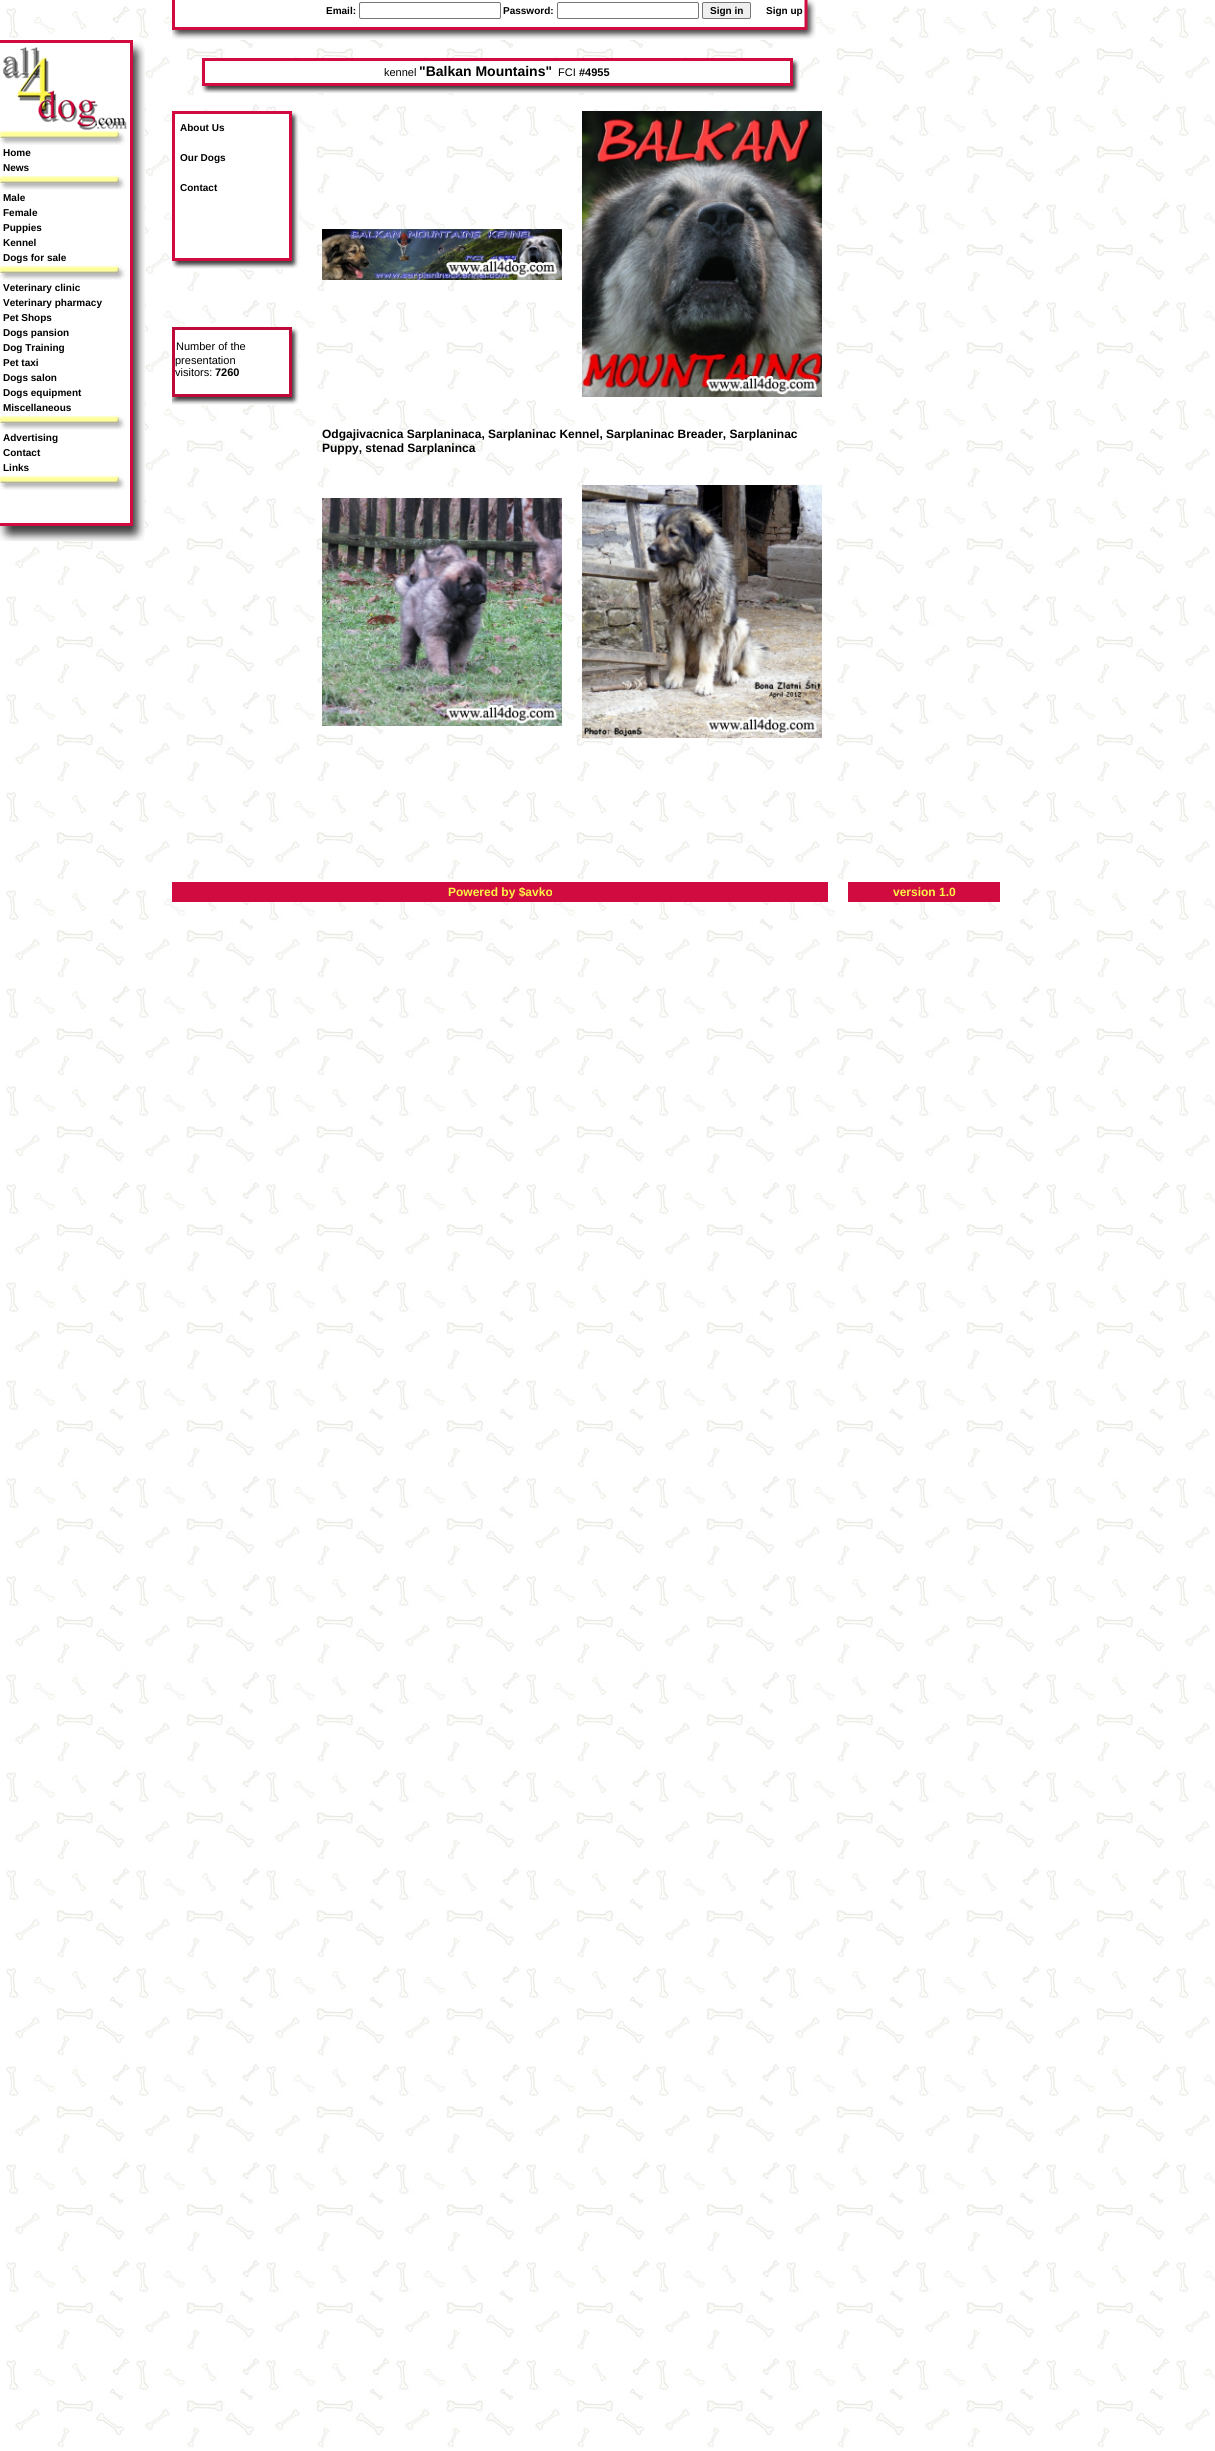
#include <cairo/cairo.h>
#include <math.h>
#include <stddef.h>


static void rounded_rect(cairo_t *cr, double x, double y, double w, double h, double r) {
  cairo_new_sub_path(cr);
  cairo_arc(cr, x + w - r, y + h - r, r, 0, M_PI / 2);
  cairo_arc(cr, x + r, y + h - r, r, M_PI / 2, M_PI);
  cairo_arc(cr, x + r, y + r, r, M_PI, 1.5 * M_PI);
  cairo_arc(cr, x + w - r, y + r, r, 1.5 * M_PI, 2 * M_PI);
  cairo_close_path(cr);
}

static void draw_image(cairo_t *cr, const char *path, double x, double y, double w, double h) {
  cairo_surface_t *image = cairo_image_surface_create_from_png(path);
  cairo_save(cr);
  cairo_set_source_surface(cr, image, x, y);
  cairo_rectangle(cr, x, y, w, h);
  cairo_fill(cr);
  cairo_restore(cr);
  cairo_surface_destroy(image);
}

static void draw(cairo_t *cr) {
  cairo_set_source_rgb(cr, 1, 1, 1);
  cairo_paint(cr);
  draw_image(cr, "images/1.png", 6, 6, 1209, 2442);
  draw_image(cr, "images/2.png", 172, 0, 644, 40);
  rounded_rect(cr, 359.5, 2.5, 141, 16, 1.5);
  cairo_set_source_rgb(cr, 118 / 255.0, 118 / 255.0, 118 / 255.0);
  cairo_set_line_width(cr, 1);
  cairo_stroke(cr);
  rounded_rect(cr, 557.5, 2.5, 141, 16, 1.5);
  cairo_stroke(cr);
  cairo_set_source_rgb(cr, 239 / 255.0, 239 / 255.0, 239 / 255.0);
  rounded_rect(cr, 702.5, 2.5, 48, 16, 1.5);
  cairo_fill_preserve(cr);
  cairo_set_source_rgb(cr, 118 / 255.0, 118 / 255.0, 118 / 255.0);
  cairo_stroke(cr);
  draw_image(cr, "images/3.png", 0, 40, 145, 501);
  draw_image(cr, "images/4.png", 0, 130, 128, 15);
  draw_image(cr, "images/4.png", 0, 175, 128, 15);
  draw_image(cr, "images/4.png", 0, 265, 128, 15);
  draw_image(cr, "images/4.png", 0, 415, 128, 15);
  draw_image(cr, "images/4.png", 0, 475, 128, 15);
  draw_image(cr, "images/5.png", 201, 58, 599, 35);
  draw_image(cr, "images/6.png", 172, 111, 127, 158);
  draw_image(cr, "images/7.png", 172, 327, 127, 78);
  draw_image(cr, "images/8.png", 322, 229, 240, 51);
  draw_image(cr, "images/9.png", 582, 111, 240, 286);
  draw_image(cr, "images/10.png", 322, 498, 240, 228);
  draw_image(cr, "images/11.png", 582, 485, 240, 253);
  cairo_set_source_rgb(cr, 209 / 255.0, 11 / 255.0, 63 / 255.0);
  cairo_rectangle(cr, 172, 882, 656, 20);
  cairo_fill(cr);
  cairo_rectangle(cr, 848, 882, 152, 20);
  cairo_fill(cr);
  cairo_select_font_face(cr, "Liberation Sans", CAIRO_FONT_SLANT_NORMAL, CAIRO_FONT_WEIGHT_BOLD);
  cairo_set_font_size(cr, 10);
  cairo_set_source_rgb(cr, 0, 0, 0);
  cairo_move_to(cr, 326, 14);
  cairo_show_text(cr, "Email:");
  cairo_move_to(cr, 503, 14);
  cairo_show_text(cr, "Password:");
  cairo_move_to(cr, 710, 14);
  cairo_show_text(cr, "Sign in");
  cairo_move_to(cr, 766, 14);
  cairo_show_text(cr, "Sign up");
  cairo_move_to(cr, 3, 156);
  cairo_show_text(cr, "Home");
  cairo_move_to(cr, 3, 171);
  cairo_show_text(cr, "News");
  cairo_move_to(cr, 3, 201);
  cairo_show_text(cr, "Male");
  cairo_move_to(cr, 3, 216);
  cairo_show_text(cr, "Female");
  cairo_move_to(cr, 3, 231);
  cairo_show_text(cr, "Puppies");
  cairo_move_to(cr, 3, 246);
  cairo_show_text(cr, "Kennel");
  cairo_move_to(cr, 3, 261);
  cairo_show_text(cr, "Dogs for sale");
  cairo_move_to(cr, 3, 291);
  cairo_show_text(cr, "Veterinary clinic");
  cairo_move_to(cr, 3, 306);
  cairo_show_text(cr, "Veterinary pharmacy");
  cairo_move_to(cr, 3, 321);
  cairo_show_text(cr, "Pet Shops");
  cairo_move_to(cr, 3, 336);
  cairo_show_text(cr, "Dogs pansion");
  cairo_move_to(cr, 3, 351);
  cairo_show_text(cr, "Dog Training");
  cairo_move_to(cr, 3, 366);
  cairo_show_text(cr, "Pet taxi");
  cairo_move_to(cr, 3, 381);
  cairo_show_text(cr, "Dogs salon");
  cairo_move_to(cr, 3, 396);
  cairo_show_text(cr, "Dogs equipment");
  cairo_move_to(cr, 3, 411);
  cairo_show_text(cr, "Miscellaneous");
  cairo_move_to(cr, 3, 441);
  cairo_show_text(cr, "Advertising");
  cairo_move_to(cr, 3, 456);
  cairo_show_text(cr, "Contact");
  cairo_move_to(cr, 3, 471);
  cairo_show_text(cr, "Links");
  cairo_select_font_face(cr, "Liberation Sans", CAIRO_FONT_SLANT_NORMAL, CAIRO_FONT_WEIGHT_NORMAL);
  cairo_set_font_size(cr, 11);
  cairo_move_to(cr, 384, 76);
  cairo_show_text(cr, "kennel");
  cairo_select_font_face(cr, "Liberation Sans", CAIRO_FONT_SLANT_NORMAL, CAIRO_FONT_WEIGHT_BOLD);
  cairo_set_font_size(cr, 14);
  cairo_move_to(cr, 419, 76);
  cairo_show_text(cr, "\"Balkan Mountains\"");
  cairo_select_font_face(cr, "Liberation Sans", CAIRO_FONT_SLANT_NORMAL, CAIRO_FONT_WEIGHT_NORMAL);
  cairo_set_font_size(cr, 11);
  cairo_move_to(cr, 558, 76);
  cairo_show_text(cr, "FCI");
  cairo_select_font_face(cr, "Liberation Sans", CAIRO_FONT_SLANT_NORMAL, CAIRO_FONT_WEIGHT_BOLD);
  cairo_move_to(cr, 579, 76);
  cairo_show_text(cr, "#4955");
  cairo_set_font_size(cr, 10);
  cairo_move_to(cr, 180, 131);
  cairo_show_text(cr, "About Us");
  cairo_move_to(cr, 180, 161);
  cairo_show_text(cr, "Our Dogs");
  cairo_move_to(cr, 180, 191);
  cairo_show_text(cr, "Contact");
  cairo_select_font_face(cr, "Liberation Sans", CAIRO_FONT_SLANT_NORMAL, CAIRO_FONT_WEIGHT_NORMAL);
  cairo_set_font_size(cr, 11);
  cairo_move_to(cr, 176, 350);
  cairo_show_text(cr, "Number of the");
  cairo_move_to(cr, 175, 364);
  cairo_show_text(cr, "presentation");
  cairo_move_to(cr, 175, 376);
  cairo_show_text(cr, "visitors:");
  cairo_select_font_face(cr, "Liberation Sans", CAIRO_FONT_SLANT_NORMAL, CAIRO_FONT_WEIGHT_BOLD);
  cairo_move_to(cr, 215, 376);
  cairo_show_text(cr, "7260");
  cairo_set_font_size(cr, 12);
  cairo_move_to(cr, 322, 438);
  cairo_show_text(cr, "Odgajivacnica Sarplaninaca, Sarplaninac Kennel, Sarplaninac Breader, Sarplaninac");
  cairo_move_to(cr, 322, 452);
  cairo_show_text(cr, "Puppy, stenad Sarplaninca");
  cairo_set_source_rgb(cr, 254 / 255.0, 244 / 255.0, 70 / 255.0);
  cairo_move_to(cr, 448, 896);
  cairo_show_text(cr, "Powered by $avko");
  cairo_move_to(cr, 893, 896);
  cairo_show_text(cr, "version 1.0");
}

int main(void) {
  cairo_surface_t *surface = cairo_image_surface_create(CAIRO_FORMAT_RGB24, 1215, 2451);
  cairo_t *cr = cairo_create(surface);
  cairo_font_options_t *options = cairo_font_options_create();
  cairo_font_options_set_hint_metrics(options, CAIRO_HINT_METRICS_OFF);
  cairo_font_options_set_hint_style(options, CAIRO_HINT_STYLE_NONE);
  cairo_set_font_options(cr, options);
  cairo_set_miter_limit(cr, 4);
  draw(cr);
  cairo_surface_write_to_png(surface, "out.png");
  cairo_font_options_destroy(options);
  cairo_destroy(cr);
  cairo_surface_destroy(surface);
  return 0;
}
